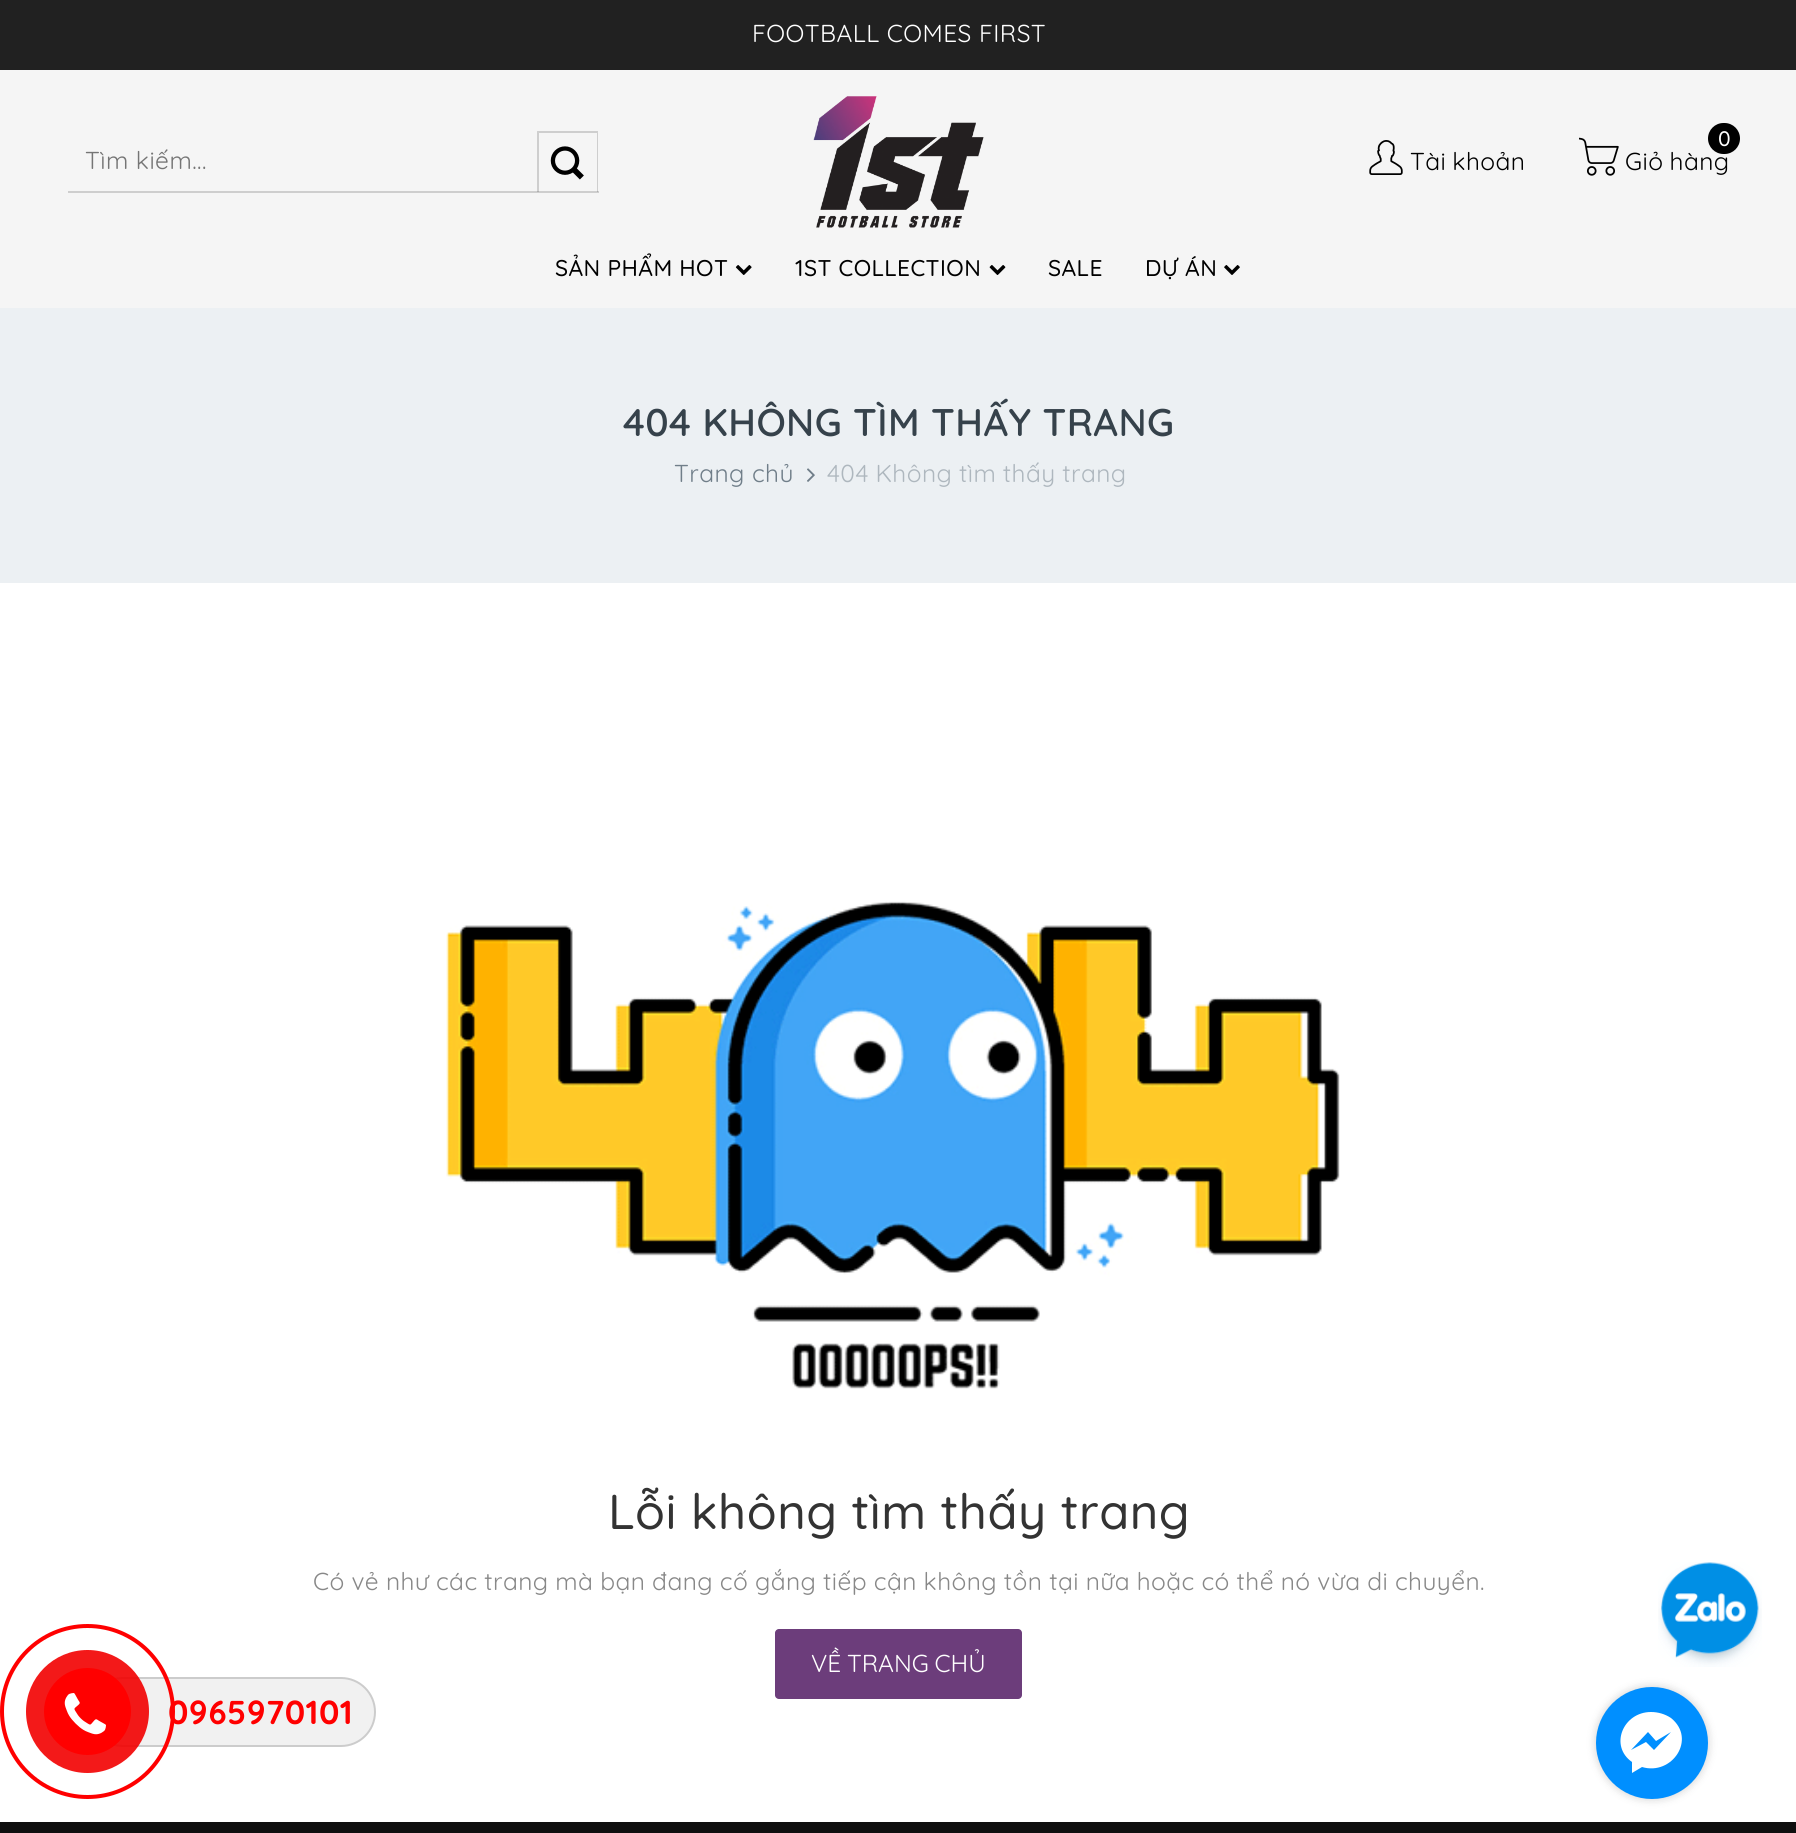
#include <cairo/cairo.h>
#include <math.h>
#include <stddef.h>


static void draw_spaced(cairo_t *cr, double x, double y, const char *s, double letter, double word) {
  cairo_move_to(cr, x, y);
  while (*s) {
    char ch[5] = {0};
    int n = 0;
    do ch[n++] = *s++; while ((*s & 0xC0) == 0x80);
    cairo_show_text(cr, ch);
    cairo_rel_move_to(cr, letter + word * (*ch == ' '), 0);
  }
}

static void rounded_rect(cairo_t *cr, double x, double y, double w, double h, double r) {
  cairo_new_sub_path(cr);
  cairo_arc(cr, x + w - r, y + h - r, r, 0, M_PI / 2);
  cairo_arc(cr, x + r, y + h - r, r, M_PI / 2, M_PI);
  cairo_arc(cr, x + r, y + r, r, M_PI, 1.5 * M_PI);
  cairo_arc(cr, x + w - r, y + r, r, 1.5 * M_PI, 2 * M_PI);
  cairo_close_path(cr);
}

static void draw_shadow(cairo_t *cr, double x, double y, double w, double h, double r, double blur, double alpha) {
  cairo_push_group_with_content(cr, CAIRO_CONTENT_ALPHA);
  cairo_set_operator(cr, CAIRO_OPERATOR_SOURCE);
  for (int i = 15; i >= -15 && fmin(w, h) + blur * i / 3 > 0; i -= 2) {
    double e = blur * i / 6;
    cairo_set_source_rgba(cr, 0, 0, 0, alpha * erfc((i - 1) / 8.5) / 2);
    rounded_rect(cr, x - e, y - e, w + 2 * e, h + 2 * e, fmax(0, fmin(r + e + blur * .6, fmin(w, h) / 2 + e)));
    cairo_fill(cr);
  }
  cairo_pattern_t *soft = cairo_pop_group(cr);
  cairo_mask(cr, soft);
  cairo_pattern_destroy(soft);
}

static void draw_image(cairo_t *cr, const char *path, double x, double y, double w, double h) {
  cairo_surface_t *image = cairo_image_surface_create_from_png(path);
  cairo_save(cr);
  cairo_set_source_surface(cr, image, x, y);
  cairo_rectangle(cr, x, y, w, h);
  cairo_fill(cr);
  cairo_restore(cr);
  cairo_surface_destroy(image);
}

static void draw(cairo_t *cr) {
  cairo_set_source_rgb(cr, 1, 1, 1);
  cairo_paint(cr);
  cairo_set_source_rgb(cr, 33 / 255.0, 33 / 255.0, 33 / 255.0);
  cairo_rectangle(cr, 0, 0, 1796, 70);
  cairo_fill(cr);
  cairo_set_source_rgb(cr, 245 / 255.0, 245 / 255.0, 245 / 255.0);
  cairo_rectangle(cr, 0, 70, 1796, 238);
  cairo_fill(cr);
  cairo_set_source_rgb(cr, 206 / 255.0, 206 / 255.0, 206 / 255.0);
  cairo_rectangle(cr, 68, 191, 531, 2);
  cairo_fill(cr);
  cairo_new_path(cr);
  cairo_move_to(cr, 537, 131);
  cairo_line_to(cr, 598, 131);
  cairo_line_to(cr, 597, 133);
  cairo_line_to(cr, 539, 133);
  cairo_close_path(cr);
  cairo_fill(cr);
  cairo_set_source_rgba(cr, 51 / 255.0, 51 / 255.0, 51 / 255.0, 0.2);
  cairo_new_path(cr);
  cairo_move_to(cr, 598, 131);
  cairo_line_to(cr, 598, 192);
  cairo_line_to(cr, 597, 192);
  cairo_line_to(cr, 597, 133);
  cairo_close_path(cr);
  cairo_move_to(cr, 537, 192);
  cairo_line_to(cr, 537, 131);
  cairo_line_to(cr, 539, 133);
  cairo_line_to(cr, 539, 192);
  cairo_close_path(cr);
  cairo_fill(cr);
  draw_image(cr, "images/1.png", 550, 146, 34, 34);
  draw_image(cr, "images/2.png", 813, 96, 171, 132);
  draw_image(cr, "images/3.png", 1369, 140, 34, 35);
  draw_image(cr, "images/4.png", 1579, 137, 40, 39);
  cairo_set_source_rgb(cr, 0, 0, 0);
  rounded_rect(cr, 1708, 123, 32, 31, 15.5);
  cairo_fill(cr);
  draw_image(cr, "images/5.png", 735, 265, 17, 10);
  draw_image(cr, "images/6.png", 989, 265, 17, 10);
  draw_image(cr, "images/7.png", 1224, 265, 16, 10);
  cairo_set_source_rgb(cr, 236 / 255.0, 240 / 255.0, 243 / 255.0);
  cairo_rectangle(cr, 0, 308, 1796, 275);
  cairo_fill(cr);
  draw_image(cr, "images/8.png", 807, 468, 8, 14);
  draw_image(cr, "images/9.png", 446, 901, 894, 488);
  cairo_set_source_rgb(cr, 108 / 255.0, 61 / 255.0, 123 / 255.0);
  rounded_rect(cr, 775, 1629, 247, 70, 4);
  cairo_fill(cr);
  draw_image(cr, "images/10.png", 1658, 1562, 104, 105);
  cairo_set_source_rgb(cr, 241 / 255.0, 241 / 255.0, 241 / 255.0);
  rounded_rect(cr, 89, 1678, 286, 68, 34);
  cairo_fill_preserve(cr);
  cairo_set_source_rgb(cr, 204 / 255.0, 204 / 255.0, 204 / 255.0);
  cairo_stroke(cr);
  cairo_arc(cr, 87.5, 1711.5, 85.5, 0, 2 * M_PI);
  cairo_set_source_rgb(cr, 1, 0, 0);
  cairo_set_line_width(cr, 4);
  cairo_stroke(cr);
  cairo_set_source_rgba(cr, 242 / 255.0, 0, 0, 0.9);
  cairo_arc(cr, 87.5, 1711.5, 61.5, 0, 2 * M_PI);
  cairo_fill(cr);
  cairo_set_source_rgb(cr, 1, 0, 0);
  cairo_arc(cr, 87.5, 1711.5, 43.5, 0, 2 * M_PI);
  cairo_fill(cr);
  draw_image(cr, "images/11.png", 64, 1693, 42, 42);
  cairo_set_source_rgb(cr, 0, 0, 0);
  draw_shadow(cr, 1596, 1687, 112, 112, 56, 4.5, 0.2);
  cairo_set_source_rgb(cr, 0, 143 / 255.0, 1);
  cairo_arc(cr, 1652, 1743, 56, 0, 2 * M_PI);
  cairo_fill(cr);
  cairo_set_source_rgb(cr, 1, 1, 1);
  cairo_new_path(cr);
  cairo_move_to(cr, 1651, 1712);
  cairo_curve_to(cr, 1623, 1712, 1609, 1746, 1632, 1762);
  cairo_line_to(cr, 1632, 1773);
  cairo_line_to(cr, 1642, 1767);
  cairo_curve_to(cr, 1672, 1776, 1697, 1739, 1671, 1718);
  cairo_curve_to(cr, 1665, 1714, 1658, 1712, 1651, 1712);
  cairo_close_path(cr);
  cairo_move_to(cr, 1654, 1750);
  cairo_line_to(cr, 1646, 1742);
  cairo_line_to(cr, 1631, 1750);
  cairo_line_to(cr, 1648, 1732);
  cairo_line_to(cr, 1656, 1741);
  cairo_line_to(cr, 1671, 1732);
  cairo_close_path(cr);
  cairo_fill(cr);
  cairo_set_source_rgb(cr, 15 / 255.0, 15 / 255.0, 15 / 255.0);
  cairo_rectangle(cr, 0, 1822, 1796, 11);
  cairo_fill(cr);
  cairo_select_font_face(cr, "Quicksand", CAIRO_FONT_SLANT_NORMAL, CAIRO_FONT_WEIGHT_NORMAL);
  cairo_set_font_size(cr, 24.5);
  cairo_set_source_rgb(cr, 1, 1, 1);
  draw_spaced(cr, 752, 42, "FOOTBALL COMES FIRST", 0.45, 0);
  cairo_set_source_rgb(cr, 117 / 255.0, 117 / 255.0, 117 / 255.0);
  draw_spaced(cr, 85, 169, "Tìm kiếm...", 0.45, 0);
  cairo_set_source_rgb(cr, 0, 0, 0);
  draw_spaced(cr, 1410, 170, "Tài khoản", 0.45, -1);
  cairo_select_font_face(cr, "Quicksand Medium", CAIRO_FONT_SLANT_NORMAL, CAIRO_FONT_WEIGHT_NORMAL);
  cairo_set_font_size(cr, 21);
  cairo_set_source_rgb(cr, 1, 1, 1);
  draw_spaced(cr, 1718, 146, "0", 0.45, 0);
  cairo_select_font_face(cr, "Quicksand", CAIRO_FONT_SLANT_NORMAL, CAIRO_FONT_WEIGHT_NORMAL);
  cairo_set_font_size(cr, 24.5);
  cairo_set_source_rgb(cr, 0, 0, 0);
  draw_spaced(cr, 1625, 170, "Giỏ hàng", 0.45, -1);
  cairo_select_font_face(cr, "Quicksand Medium", CAIRO_FONT_SLANT_NORMAL, CAIRO_FONT_WEIGHT_NORMAL);
  cairo_set_font_size(cr, 22.75);
  draw_spaced(cr, 555, 276, "SẢN PHẨM HOT", 0.45, 0);
  draw_spaced(cr, 795, 276, "1ST COLLECTION", 0.45, 0);
  draw_spaced(cr, 1048, 276, "SALE", 0.45, 0);
  draw_spaced(cr, 1145, 276, "DỰ ÁN", 0.45, 0);
  cairo_select_font_face(cr, "Quicksand SemiBold", CAIRO_FONT_SLANT_NORMAL, CAIRO_FONT_WEIGHT_NORMAL);
  cairo_set_font_size(cr, 38.5);
  cairo_set_source_rgb(cr, 54 / 255.0, 66 / 255.0, 75 / 255.0);
  draw_spaced(cr, 623, 436, "404 KHÔNG TÌM THẤY TRANG", 0.4, 0);
  cairo_select_font_face(cr, "Quicksand", CAIRO_FONT_SLANT_NORMAL, CAIRO_FONT_WEIGHT_NORMAL);
  cairo_set_font_size(cr, 24.5);
  cairo_set_source_rgb(cr, 112 / 255.0, 126 / 255.0, 137 / 255.0);
  draw_spaced(cr, 674, 482, "Trang chủ", 0.45, 0);
  cairo_set_source_rgb(cr, 174 / 255.0, 183 / 255.0, 190 / 255.0);
  draw_spaced(cr, 827, 482, "404 Không tìm thấy trang", 0.45, -0.5);
  cairo_select_font_face(cr, "Quicksand Medium", CAIRO_FONT_SLANT_NORMAL, CAIRO_FONT_WEIGHT_NORMAL);
  cairo_set_font_size(cr, 49);
  cairo_set_source_rgb(cr, 51 / 255.0, 51 / 255.0, 51 / 255.0);
  draw_spaced(cr, 608, 1529, "Lỗi không tìm thấy trang", 0.5, 0);
  cairo_select_font_face(cr, "Quicksand", CAIRO_FONT_SLANT_NORMAL, CAIRO_FONT_WEIGHT_NORMAL);
  cairo_set_font_size(cr, 24.5);
  cairo_set_source_rgb(cr, 136 / 255.0, 136 / 255.0, 136 / 255.0);
  draw_spaced(cr, 313, 1590, "Có vẻ như các trang mà bạn đang cố gắng tiếp cận không tồn tại nữa hoặc có thể nó vừa di chuyển.", 0.45, -0.4);
  cairo_set_source_rgb(cr, 1, 1, 1);
  draw_spaced(cr, 811, 1672, "VỀ TRANG CHỦ", 0, -1);
  cairo_select_font_face(cr, "Quicksand", CAIRO_FONT_SLANT_NORMAL, CAIRO_FONT_WEIGHT_BOLD);
  cairo_set_font_size(cr, 33.25);
  cairo_set_source_rgb(cr, 1, 0, 0);
  draw_spaced(cr, 168, 1724, "0965970101", 0.45, 0);
}

int main(void) {
  cairo_surface_t *surface = cairo_image_surface_create(CAIRO_FORMAT_RGB24, 1796, 1833);
  cairo_t *cr = cairo_create(surface);
  cairo_font_options_t *options = cairo_font_options_create();
  cairo_font_options_set_hint_metrics(options, CAIRO_HINT_METRICS_OFF);
  cairo_font_options_set_hint_style(options, CAIRO_HINT_STYLE_NONE);
  cairo_set_font_options(cr, options);
  cairo_set_miter_limit(cr, 4);
  draw(cr);
  cairo_surface_write_to_png(surface, "out.png");
  cairo_font_options_destroy(options);
  cairo_destroy(cr);
  cairo_surface_destroy(surface);
  return 0;
}
